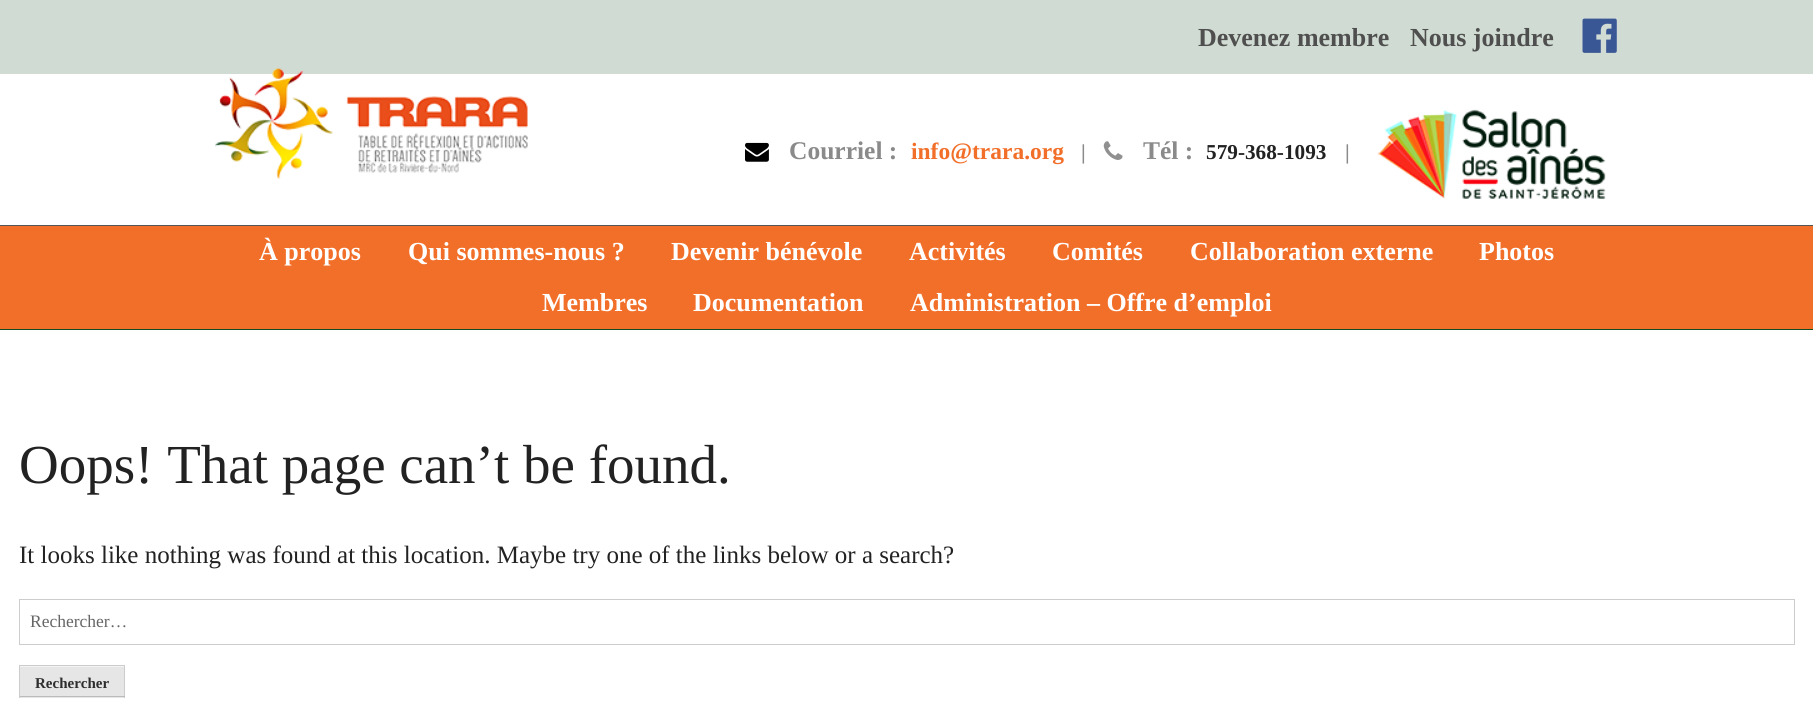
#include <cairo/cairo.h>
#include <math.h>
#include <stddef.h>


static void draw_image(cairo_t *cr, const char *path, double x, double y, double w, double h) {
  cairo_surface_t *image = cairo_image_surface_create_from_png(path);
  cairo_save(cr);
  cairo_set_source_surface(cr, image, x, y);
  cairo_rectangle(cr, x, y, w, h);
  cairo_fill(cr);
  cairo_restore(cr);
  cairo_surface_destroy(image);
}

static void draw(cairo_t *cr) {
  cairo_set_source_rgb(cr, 1, 1, 1);
  cairo_paint(cr);
  cairo_set_source_rgb(cr, 208 / 255.0, 220 / 255.0, 211 / 255.0);
  cairo_rectangle(cr, 0, 0, 1813, 74);
  cairo_fill(cr);
  draw_image(cr, "images/1.png", 1582, 18, 35, 35);
  draw_image(cr, "images/2.png", 215, 68, 313, 111);
  draw_image(cr, "images/3.png", 745, 142, 24, 20);
  draw_image(cr, "images/4.png", 1103, 141, 20, 19);
  draw_image(cr, "images/5.png", 1377, 109, 229, 90);
  cairo_set_source_rgb(cr, 242 / 255.0, 111 / 255.0, 41 / 255.0);
  cairo_rectangle(cr, 0, 226, 1813, 103);
  cairo_fill(cr);
  cairo_set_source_rgb(cr, 85 / 255.0, 85 / 255.0, 85 / 255.0);
  cairo_rectangle(cr, 0, 225, 1813, 1);
  cairo_fill(cr);
  cairo_set_source_rgb(cr, 19 / 255.0, 77 / 255.0, 31 / 255.0);
  cairo_rectangle(cr, 0, 329, 1813, 1);
  cairo_fill(cr);
  cairo_rectangle(cr, 19.5, 599.5, 1775, 45);
  cairo_set_source_rgb(cr, 204 / 255.0, 204 / 255.0, 204 / 255.0);
  cairo_set_line_width(cr, 1);
  cairo_stroke(cr);
  cairo_set_source_rgb(cr, 230 / 255.0, 230 / 255.0, 230 / 255.0);
  cairo_rectangle(cr, 20, 667, 104, 31);
  cairo_fill(cr);
  cairo_set_source_rgb(cr, 243 / 255.0, 243 / 255.0, 243 / 255.0);
  cairo_rectangle(cr, 20, 666, 104, 1);
  cairo_fill(cr);
  cairo_set_source_rgb(cr, 204 / 255.0, 204 / 255.0, 204 / 255.0);
  cairo_rectangle(cr, 19, 665, 106, 1);
  cairo_fill(cr);
  cairo_rectangle(cr, 124, 665, 1, 33);
  cairo_fill(cr);
  cairo_set_source_rgb(cr, 187 / 255.0, 187 / 255.0, 187 / 255.0);
  cairo_rectangle(cr, 19, 696, 106, 1);
  cairo_fill(cr);
  cairo_set_source_rgb(cr, 204 / 255.0, 204 / 255.0, 204 / 255.0);
  cairo_rectangle(cr, 19, 665, 1, 33);
  cairo_fill(cr);
  cairo_select_font_face(cr, "Liberation Serif", CAIRO_FONT_SLANT_NORMAL, CAIRO_FONT_WEIGHT_BOLD);
  cairo_set_font_size(cr, 26);
  cairo_set_source_rgb(cr, 80 / 255.0, 79 / 255.0, 79 / 255.0);
  cairo_move_to(cr, 1198, 46);
  cairo_show_text(cr, "Devenez membre");
  cairo_move_to(cr, 1410, 46);
  cairo_show_text(cr, "Nous joindre");
  cairo_set_font_size(cr, 25.5);
  cairo_set_source_rgb(cr, 138 / 255.0, 138 / 255.0, 138 / 255.0);
  cairo_move_to(cr, 789, 159);
  cairo_show_text(cr, "Courriel :");
  cairo_set_font_size(cr, 23.5);
  cairo_set_source_rgb(cr, 242 / 255.0, 111 / 255.0, 41 / 255.0);
  cairo_move_to(cr, 911, 159);
  cairo_show_text(cr, "info@trara.org");
  cairo_set_font_size(cr, 21.25);
  cairo_set_source_rgb(cr, 138 / 255.0, 138 / 255.0, 138 / 255.0);
  cairo_move_to(cr, 1081, 159);
  cairo_show_text(cr, "|");
  cairo_set_font_size(cr, 25.5);
  cairo_move_to(cr, 1143, 159);
  cairo_show_text(cr, "Tél :");
  cairo_set_font_size(cr, 21.25);
  cairo_set_source_rgb(cr, 34 / 255.0, 34 / 255.0, 34 / 255.0);
  cairo_move_to(cr, 1206, 159);
  cairo_show_text(cr, "579-368-1093");
  cairo_set_source_rgb(cr, 138 / 255.0, 138 / 255.0, 138 / 255.0);
  cairo_move_to(cr, 1345, 159);
  cairo_show_text(cr, "|");
  cairo_set_font_size(cr, 26);
  cairo_set_source_rgb(cr, 1, 1, 1);
  cairo_move_to(cr, 259, 260);
  cairo_show_text(cr, "À propos");
  cairo_move_to(cr, 408, 260);
  cairo_show_text(cr, "Qui sommes-nous ?");
  cairo_move_to(cr, 671, 260);
  cairo_show_text(cr, "Devenir bénévole");
  cairo_move_to(cr, 909, 260);
  cairo_show_text(cr, "Activités");
  cairo_move_to(cr, 1052, 260);
  cairo_show_text(cr, "Comités");
  cairo_move_to(cr, 1190, 260);
  cairo_show_text(cr, "Collaboration externe");
  cairo_move_to(cr, 1479, 260);
  cairo_show_text(cr, "Photos");
  cairo_move_to(cr, 542, 311);
  cairo_show_text(cr, "Membres");
  cairo_move_to(cr, 693, 311);
  cairo_show_text(cr, "Documentation");
  cairo_move_to(cr, 910, 311);
  cairo_show_text(cr, "Administration – Offre d’emploi");
  cairo_select_font_face(cr, "Liberation Serif", CAIRO_FONT_SLANT_NORMAL, CAIRO_FONT_WEIGHT_NORMAL);
  cairo_set_font_size(cr, 55);
  cairo_set_source_rgb(cr, 34 / 255.0, 34 / 255.0, 34 / 255.0);
  cairo_move_to(cr, 19, 483);
  cairo_show_text(cr, "Oops! That page can’t be found.");
  cairo_set_font_size(cr, 25);
  cairo_move_to(cr, 19, 563);
  cairo_show_text(cr, "It looks like nothing was found at this location. Maybe try one of the links below or a search?");
  cairo_set_font_size(cr, 17.5);
  cairo_set_source_rgb(cr, 102 / 255.0, 102 / 255.0, 102 / 255.0);
  cairo_move_to(cr, 30, 627);
  cairo_show_text(cr, "Rechercher…");
  cairo_select_font_face(cr, "Liberation Serif", CAIRO_FONT_SLANT_NORMAL, CAIRO_FONT_WEIGHT_BOLD);
  cairo_set_font_size(cr, 15);
  cairo_set_source_rgb(cr, 46 / 255.0, 46 / 255.0, 46 / 255.0);
  cairo_move_to(cr, 35, 688);
  cairo_show_text(cr, "Rechercher");
}

int main(void) {
  cairo_surface_t *surface = cairo_image_surface_create(CAIRO_FORMAT_RGB24, 1813, 701);
  cairo_t *cr = cairo_create(surface);
  cairo_font_options_t *options = cairo_font_options_create();
  cairo_font_options_set_hint_metrics(options, CAIRO_HINT_METRICS_OFF);
  cairo_font_options_set_hint_style(options, CAIRO_HINT_STYLE_NONE);
  cairo_set_font_options(cr, options);
  cairo_set_miter_limit(cr, 4);
  draw(cr);
  cairo_surface_write_to_png(surface, "out.png");
  cairo_font_options_destroy(options);
  cairo_destroy(cr);
  cairo_surface_destroy(surface);
  return 0;
}
